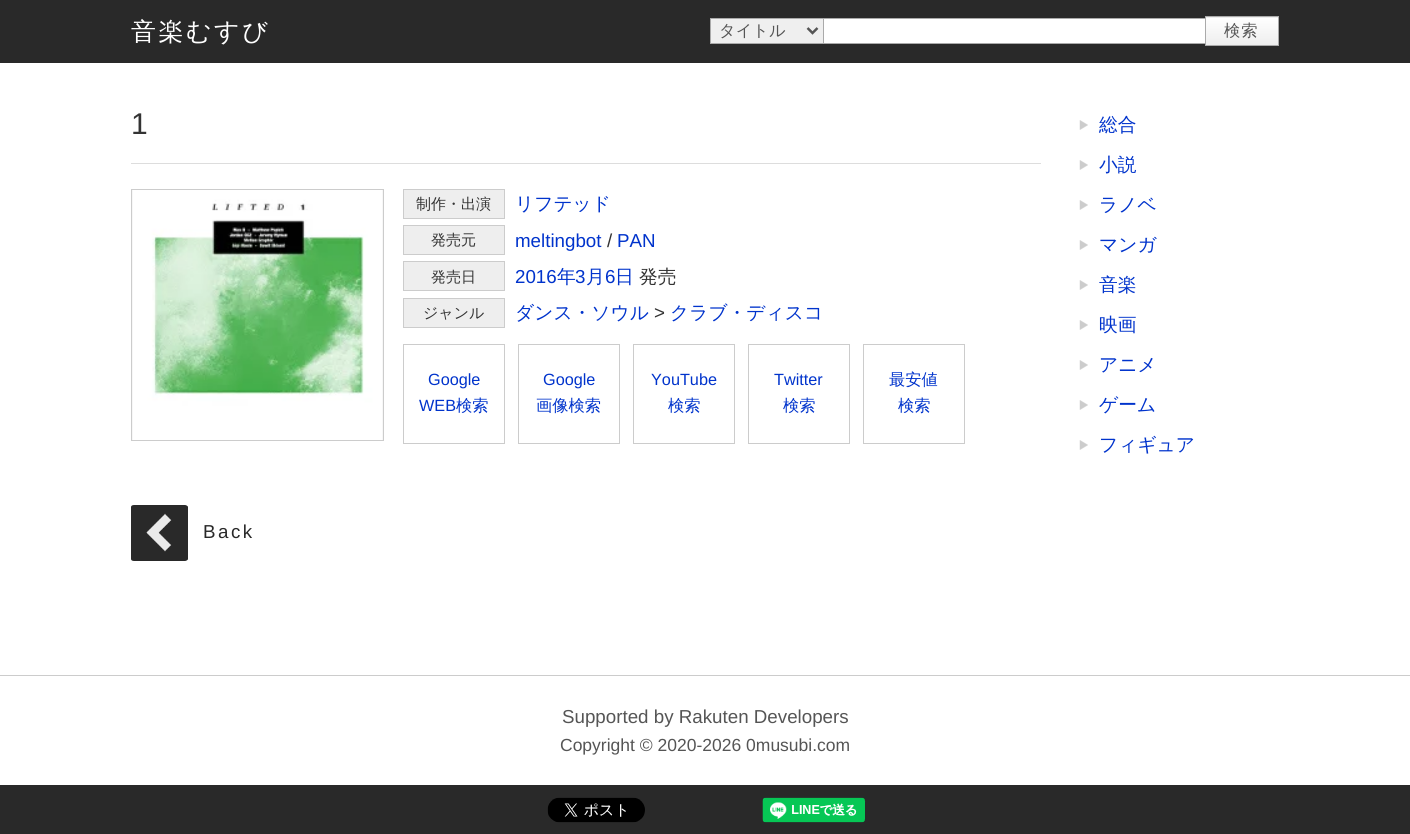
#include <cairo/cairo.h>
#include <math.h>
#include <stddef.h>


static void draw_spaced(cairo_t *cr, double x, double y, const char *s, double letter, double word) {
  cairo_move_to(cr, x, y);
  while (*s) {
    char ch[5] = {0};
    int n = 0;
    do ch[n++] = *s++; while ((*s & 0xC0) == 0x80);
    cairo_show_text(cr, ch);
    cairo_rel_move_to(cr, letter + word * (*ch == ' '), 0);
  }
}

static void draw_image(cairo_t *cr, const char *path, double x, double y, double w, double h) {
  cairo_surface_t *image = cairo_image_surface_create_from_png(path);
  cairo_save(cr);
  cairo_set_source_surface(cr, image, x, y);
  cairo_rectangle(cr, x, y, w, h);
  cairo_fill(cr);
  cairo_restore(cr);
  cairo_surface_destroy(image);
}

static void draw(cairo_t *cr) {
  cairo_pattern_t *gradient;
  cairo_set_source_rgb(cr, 1, 1, 1);
  cairo_paint(cr);
  cairo_set_source_rgb(cr, 41 / 255.0, 41 / 255.0, 41 / 255.0);
  cairo_rectangle(cr, 0, 0, 1410, 63);
  cairo_fill(cr);
  cairo_set_source_rgb(cr, 239 / 255.0, 239 / 255.0, 239 / 255.0);
  cairo_rectangle(cr, 710.5, 18.5, 113, 25);
  cairo_fill_preserve(cr);
  cairo_set_source_rgb(cr, 170 / 255.0, 170 / 255.0, 170 / 255.0);
  cairo_set_line_width(cr, 1);
  cairo_stroke(cr);
  cairo_new_path(cr);
  cairo_move_to(cr, 807.5, 28);
  cairo_line_to(cr, 812.5, 33);
  cairo_line_to(cr, 817.5, 28);
  cairo_set_source_rgb(cr, 85 / 255.0, 85 / 255.0, 85 / 255.0);
  cairo_set_line_width(cr, 2.5);
  cairo_stroke(cr);
  cairo_set_source_rgb(cr, 1, 1, 1);
  cairo_rectangle(cr, 823.5, 18.5, 382, 25);
  cairo_fill_preserve(cr);
  cairo_set_source_rgb(cr, 170 / 255.0, 170 / 255.0, 170 / 255.0);
  cairo_set_line_width(cr, 1);
  cairo_stroke(cr);
  gradient = cairo_pattern_create_linear(1242, -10, 1242, 18);
  cairo_pattern_add_color_stop_rgba(gradient, 0, 1, 1, 1, 1);
  cairo_pattern_add_color_stop_rgba(gradient, 1, 238 / 255.0, 238 / 255.0, 238 / 255.0, 1);
  cairo_set_source(cr, gradient);
  cairo_pattern_destroy(gradient);
  cairo_rectangle(cr, 1205, 17, 74, 1);
  cairo_fill(cr);
  gradient = cairo_pattern_create_linear(1242, 17, 1242, 45);
  cairo_pattern_add_color_stop_rgba(gradient, 0, 1, 1, 1, 1);
  cairo_pattern_add_color_stop_rgba(gradient, 1, 238 / 255.0, 238 / 255.0, 238 / 255.0, 1);
  cairo_set_source(cr, gradient);
  cairo_pattern_destroy(gradient);
  cairo_rectangle(cr, 1206, 18, 72, 27);
  cairo_fill(cr);
  cairo_rectangle(cr, 1205.5, 16.5, 73, 29);
  cairo_set_source_rgb(cr, 170 / 255.0, 170 / 255.0, 170 / 255.0);
  cairo_stroke(cr);
  cairo_set_source_rgb(cr, 221 / 255.0, 221 / 255.0, 221 / 255.0);
  cairo_rectangle(cr, 131, 163, 910, 1);
  cairo_fill(cr);
  cairo_set_source_rgb(cr, 238 / 255.0, 238 / 255.0, 238 / 255.0);
  cairo_rectangle(cr, 132, 190, 251, 250);
  cairo_fill(cr);
  draw_image(cr, "images/1.png", 132, 190, 251, 250);
  cairo_rectangle(cr, 131.5, 189.5, 252, 251);
  cairo_set_source_rgb(cr, 204 / 255.0, 204 / 255.0, 204 / 255.0);
  cairo_stroke(cr);
  cairo_set_source_rgb(cr, 238 / 255.0, 238 / 255.0, 238 / 255.0);
  cairo_rectangle(cr, 403.5, 189.5, 101, 29);
  cairo_fill_preserve(cr);
  cairo_set_source_rgb(cr, 204 / 255.0, 204 / 255.0, 204 / 255.0);
  cairo_stroke(cr);
  cairo_set_source_rgb(cr, 238 / 255.0, 238 / 255.0, 238 / 255.0);
  cairo_rectangle(cr, 403.5, 225.5, 101, 29);
  cairo_fill_preserve(cr);
  cairo_set_source_rgb(cr, 204 / 255.0, 204 / 255.0, 204 / 255.0);
  cairo_stroke(cr);
  cairo_set_source_rgb(cr, 238 / 255.0, 238 / 255.0, 238 / 255.0);
  cairo_rectangle(cr, 403.5, 261.5, 101, 29);
  cairo_fill_preserve(cr);
  cairo_set_source_rgb(cr, 204 / 255.0, 204 / 255.0, 204 / 255.0);
  cairo_stroke(cr);
  cairo_set_source_rgb(cr, 238 / 255.0, 238 / 255.0, 238 / 255.0);
  cairo_rectangle(cr, 403.5, 298.5, 101, 29);
  cairo_fill_preserve(cr);
  cairo_set_source_rgb(cr, 204 / 255.0, 204 / 255.0, 204 / 255.0);
  cairo_stroke(cr);
  cairo_rectangle(cr, 403.5, 344.5, 101, 99);
  cairo_stroke(cr);
  cairo_rectangle(cr, 518.5, 344.5, 101, 99);
  cairo_stroke(cr);
  cairo_rectangle(cr, 633.5, 344.5, 101, 99);
  cairo_stroke(cr);
  cairo_rectangle(cr, 748.5, 344.5, 101, 99);
  cairo_stroke(cr);
  cairo_rectangle(cr, 863.5, 344.5, 101, 99);
  cairo_stroke(cr);
  cairo_set_source_rgb(cr, 41 / 255.0, 41 / 255.0, 41 / 255.0);
  cairo_new_path(cr);
  cairo_move_to(cr, 131, 559);
  cairo_line_to(cr, 131, 507);
  cairo_curve_to(cr, 131, 506, 132, 505, 134, 505);
  cairo_line_to(cr, 185, 505);
  cairo_curve_to(cr, 186, 505, 188, 506, 188, 507);
  cairo_line_to(cr, 188, 559);
  cairo_curve_to(cr, 188, 560, 186, 561, 185, 561);
  cairo_line_to(cr, 134, 561);
  cairo_curve_to(cr, 132, 561, 131, 560, 131, 559);
  cairo_close_path(cr);
  cairo_fill(cr);
  draw_image(cr, "images/2.png", 146, 513, 26, 39);
  draw_image(cr, "images/3.png", 1079, 120, 9, 10);
  draw_image(cr, "images/3.png", 1079, 160, 9, 10);
  draw_image(cr, "images/3.png", 1079, 200, 9, 10);
  draw_image(cr, "images/3.png", 1079, 240, 9, 10);
  draw_image(cr, "images/3.png", 1079, 280, 9, 10);
  draw_image(cr, "images/3.png", 1079, 320, 9, 10);
  draw_image(cr, "images/3.png", 1079, 360, 9, 10);
  draw_image(cr, "images/3.png", 1079, 400, 9, 10);
  draw_image(cr, "images/3.png", 1079, 440, 9, 10);
  cairo_set_source_rgb(cr, 204 / 255.0, 204 / 255.0, 204 / 255.0);
  cairo_rectangle(cr, 0, 675, 1410, 1);
  cairo_fill(cr);
  cairo_set_source_rgb(cr, 41 / 255.0, 41 / 255.0, 41 / 255.0);
  cairo_rectangle(cr, 0, 785, 1410, 49);
  cairo_fill(cr);
  draw_image(cr, "images/4.png", 547, 797, 98, 26);
  draw_image(cr, "images/5.png", 762, 797, 104, 26);
  cairo_select_font_face(cr, "WenQuanYi Zen Hei Medium", CAIRO_FONT_SLANT_NORMAL, CAIRO_FONT_WEIGHT_NORMAL);
  cairo_set_font_size(cr, 25);
  cairo_set_source_rgb(cr, 1, 1, 1);
  draw_spaced(cr, 131, 40, "音楽むすび", 2.5, 0);
  cairo_set_font_size(cr, 16.25);
  cairo_set_source_rgb(cr, 85 / 255.0, 85 / 255.0, 85 / 255.0);
  cairo_move_to(cr, 719, 36);
  cairo_show_text(cr, "タイトル");
  draw_spaced(cr, 1224, 36, "検索", 1, 0);
  cairo_select_font_face(cr, "Liberation Sans", CAIRO_FONT_SLANT_NORMAL, CAIRO_FONT_WEIGHT_NORMAL);
  cairo_set_font_size(cr, 30);
  cairo_set_source_rgb(cr, 51 / 255.0, 51 / 255.0, 51 / 255.0);
  draw_spaced(cr, 131, 134, "1", 2.5, 0);
  cairo_select_font_face(cr, "WenQuanYi Zen Hei Medium", CAIRO_FONT_SLANT_NORMAL, CAIRO_FONT_WEIGHT_NORMAL);
  cairo_set_font_size(cr, 15);
  cairo_move_to(cr, 416, 209);
  cairo_show_text(cr, "制作・出演");
  cairo_set_font_size(cr, 18.75);
  cairo_set_source_rgb(cr, 0, 51 / 255.0, 204 / 255.0);
  cairo_move_to(cr, 515, 210);
  cairo_show_text(cr, "リフテッド");
  cairo_set_font_size(cr, 15);
  cairo_set_source_rgb(cr, 51 / 255.0, 51 / 255.0, 51 / 255.0);
  cairo_move_to(cr, 431, 245);
  cairo_show_text(cr, "発売元");
  cairo_select_font_face(cr, "Liberation Sans", CAIRO_FONT_SLANT_NORMAL, CAIRO_FONT_WEIGHT_NORMAL);
  cairo_set_font_size(cr, 18.75);
  cairo_set_source_rgb(cr, 0, 51 / 255.0, 204 / 255.0);
  cairo_move_to(cr, 515, 247);
  cairo_show_text(cr, "meltingbot");
  cairo_set_source_rgb(cr, 51 / 255.0, 51 / 255.0, 51 / 255.0);
  cairo_move_to(cr, 607, 247);
  cairo_show_text(cr, "/");
  cairo_set_source_rgb(cr, 0, 51 / 255.0, 204 / 255.0);
  cairo_move_to(cr, 617, 247);
  cairo_show_text(cr, "PAN");
  cairo_select_font_face(cr, "WenQuanYi Zen Hei Medium", CAIRO_FONT_SLANT_NORMAL, CAIRO_FONT_WEIGHT_NORMAL);
  cairo_set_font_size(cr, 15);
  cairo_set_source_rgb(cr, 51 / 255.0, 51 / 255.0, 51 / 255.0);
  cairo_move_to(cr, 431, 282);
  cairo_show_text(cr, "発売日");
  cairo_select_font_face(cr, "Liberation Sans", CAIRO_FONT_SLANT_NORMAL, CAIRO_FONT_WEIGHT_NORMAL);
  cairo_set_font_size(cr, 18.75);
  cairo_set_source_rgb(cr, 0, 51 / 255.0, 204 / 255.0);
  cairo_move_to(cr, 515, 283);
  cairo_show_text(cr, "2016");
  cairo_select_font_face(cr, "WenQuanYi Zen Hei Medium", CAIRO_FONT_SLANT_NORMAL, CAIRO_FONT_WEIGHT_NORMAL);
  cairo_move_to(cr, 557, 283);
  cairo_show_text(cr, "年");
  cairo_select_font_face(cr, "Liberation Sans", CAIRO_FONT_SLANT_NORMAL, CAIRO_FONT_WEIGHT_NORMAL);
  cairo_move_to(cr, 575, 283);
  cairo_show_text(cr, "3");
  cairo_select_font_face(cr, "WenQuanYi Zen Hei Medium", CAIRO_FONT_SLANT_NORMAL, CAIRO_FONT_WEIGHT_NORMAL);
  cairo_move_to(cr, 586, 283);
  cairo_show_text(cr, "月");
  cairo_select_font_face(cr, "Liberation Sans", CAIRO_FONT_SLANT_NORMAL, CAIRO_FONT_WEIGHT_NORMAL);
  cairo_move_to(cr, 605, 283);
  cairo_show_text(cr, "6");
  cairo_select_font_face(cr, "WenQuanYi Zen Hei Medium", CAIRO_FONT_SLANT_NORMAL, CAIRO_FONT_WEIGHT_NORMAL);
  cairo_move_to(cr, 615, 283);
  cairo_show_text(cr, "日");
  cairo_set_source_rgb(cr, 51 / 255.0, 51 / 255.0, 51 / 255.0);
  cairo_move_to(cr, 639, 283);
  cairo_show_text(cr, "発売");
  cairo_set_font_size(cr, 15);
  cairo_move_to(cr, 423, 318);
  cairo_show_text(cr, "ジャンル");
  cairo_set_font_size(cr, 18.75);
  cairo_set_source_rgb(cr, 0, 51 / 255.0, 204 / 255.0);
  cairo_move_to(cr, 515, 319);
  cairo_show_text(cr, "ダンス・ソウル");
  cairo_select_font_face(cr, "Liberation Sans", CAIRO_FONT_SLANT_NORMAL, CAIRO_FONT_WEIGHT_NORMAL);
  cairo_set_source_rgb(cr, 51 / 255.0, 51 / 255.0, 51 / 255.0);
  cairo_move_to(cr, 654, 319);
  cairo_show_text(cr, ">");
  cairo_select_font_face(cr, "WenQuanYi Zen Hei Medium", CAIRO_FONT_SLANT_NORMAL, CAIRO_FONT_WEIGHT_NORMAL);
  cairo_set_source_rgb(cr, 0, 51 / 255.0, 204 / 255.0);
  cairo_move_to(cr, 670, 319);
  cairo_show_text(cr, "クラブ・ディスコ");
  cairo_select_font_face(cr, "Liberation Sans", CAIRO_FONT_SLANT_NORMAL, CAIRO_FONT_WEIGHT_NORMAL);
  cairo_set_font_size(cr, 16.25);
  cairo_move_to(cr, 428, 385);
  cairo_show_text(cr, "Google");
  cairo_move_to(cr, 419, 411);
  cairo_show_text(cr, "WEB");
  cairo_select_font_face(cr, "WenQuanYi Zen Hei Medium", CAIRO_FONT_SLANT_NORMAL, CAIRO_FONT_WEIGHT_NORMAL);
  cairo_move_to(cr, 456, 411);
  cairo_show_text(cr, "検索");
  cairo_select_font_face(cr, "Liberation Sans", CAIRO_FONT_SLANT_NORMAL, CAIRO_FONT_WEIGHT_NORMAL);
  cairo_move_to(cr, 543, 385);
  cairo_show_text(cr, "Google");
  cairo_select_font_face(cr, "WenQuanYi Zen Hei Medium", CAIRO_FONT_SLANT_NORMAL, CAIRO_FONT_WEIGHT_NORMAL);
  cairo_move_to(cr, 536, 411);
  cairo_show_text(cr, "画像検索");
  cairo_select_font_face(cr, "Liberation Sans", CAIRO_FONT_SLANT_NORMAL, CAIRO_FONT_WEIGHT_NORMAL);
  cairo_move_to(cr, 651, 385);
  cairo_show_text(cr, "YouTube");
  cairo_select_font_face(cr, "WenQuanYi Zen Hei Medium", CAIRO_FONT_SLANT_NORMAL, CAIRO_FONT_WEIGHT_NORMAL);
  cairo_move_to(cr, 668, 411);
  cairo_show_text(cr, "検索");
  cairo_select_font_face(cr, "Liberation Sans", CAIRO_FONT_SLANT_NORMAL, CAIRO_FONT_WEIGHT_NORMAL);
  cairo_move_to(cr, 774, 385);
  cairo_show_text(cr, "Twitter");
  cairo_select_font_face(cr, "WenQuanYi Zen Hei Medium", CAIRO_FONT_SLANT_NORMAL, CAIRO_FONT_WEIGHT_NORMAL);
  cairo_move_to(cr, 783, 411);
  cairo_show_text(cr, "検索");
  cairo_move_to(cr, 889, 385);
  cairo_show_text(cr, "最安値");
  cairo_move_to(cr, 898, 411);
  cairo_show_text(cr, "検索");
  cairo_select_font_face(cr, "Liberation Sans", CAIRO_FONT_SLANT_NORMAL, CAIRO_FONT_WEIGHT_NORMAL);
  cairo_set_font_size(cr, 18.75);
  cairo_set_source_rgb(cr, 41 / 255.0, 41 / 255.0, 41 / 255.0);
  draw_spaced(cr, 203, 538, "Back", 2.5, 0);
  cairo_select_font_face(cr, "WenQuanYi Zen Hei Medium", CAIRO_FONT_SLANT_NORMAL, CAIRO_FONT_WEIGHT_NORMAL);
  cairo_set_source_rgb(cr, 0, 51 / 255.0, 204 / 255.0);
  cairo_move_to(cr, 1099, 131);
  cairo_show_text(cr, "総合");
  cairo_move_to(cr, 1099, 171);
  cairo_show_text(cr, "小説");
  cairo_move_to(cr, 1099, 211);
  cairo_show_text(cr, "ラノベ");
  cairo_move_to(cr, 1099, 251);
  cairo_show_text(cr, "マンガ");
  cairo_move_to(cr, 1099, 291);
  cairo_show_text(cr, "音楽");
  cairo_move_to(cr, 1099, 331);
  cairo_show_text(cr, "映画");
  cairo_move_to(cr, 1099, 371);
  cairo_show_text(cr, "アニメ");
  cairo_move_to(cr, 1099, 411);
  cairo_show_text(cr, "ゲーム");
  cairo_move_to(cr, 1099, 451);
  cairo_show_text(cr, "フィギュア");
  cairo_select_font_face(cr, "Liberation Sans", CAIRO_FONT_SLANT_NORMAL, CAIRO_FONT_WEIGHT_NORMAL);
  cairo_set_source_rgb(cr, 85 / 255.0, 85 / 255.0, 85 / 255.0);
  cairo_move_to(cr, 562, 723);
  cairo_show_text(cr, "Supported by Rakuten Developers");
  cairo_set_font_size(cr, 17.5);
  cairo_move_to(cr, 560, 751);
  cairo_show_text(cr, "Copyright © 2020-2026 0musubi.com");
}

int main(void) {
  cairo_surface_t *surface = cairo_image_surface_create(CAIRO_FORMAT_RGB24, 1410, 834);
  cairo_t *cr = cairo_create(surface);
  cairo_font_options_t *options = cairo_font_options_create();
  cairo_font_options_set_hint_metrics(options, CAIRO_HINT_METRICS_OFF);
  cairo_font_options_set_hint_style(options, CAIRO_HINT_STYLE_NONE);
  cairo_set_font_options(cr, options);
  cairo_set_miter_limit(cr, 4);
  draw(cr);
  cairo_surface_write_to_png(surface, "out.png");
  cairo_font_options_destroy(options);
  cairo_destroy(cr);
  cairo_surface_destroy(surface);
  return 0;
}
